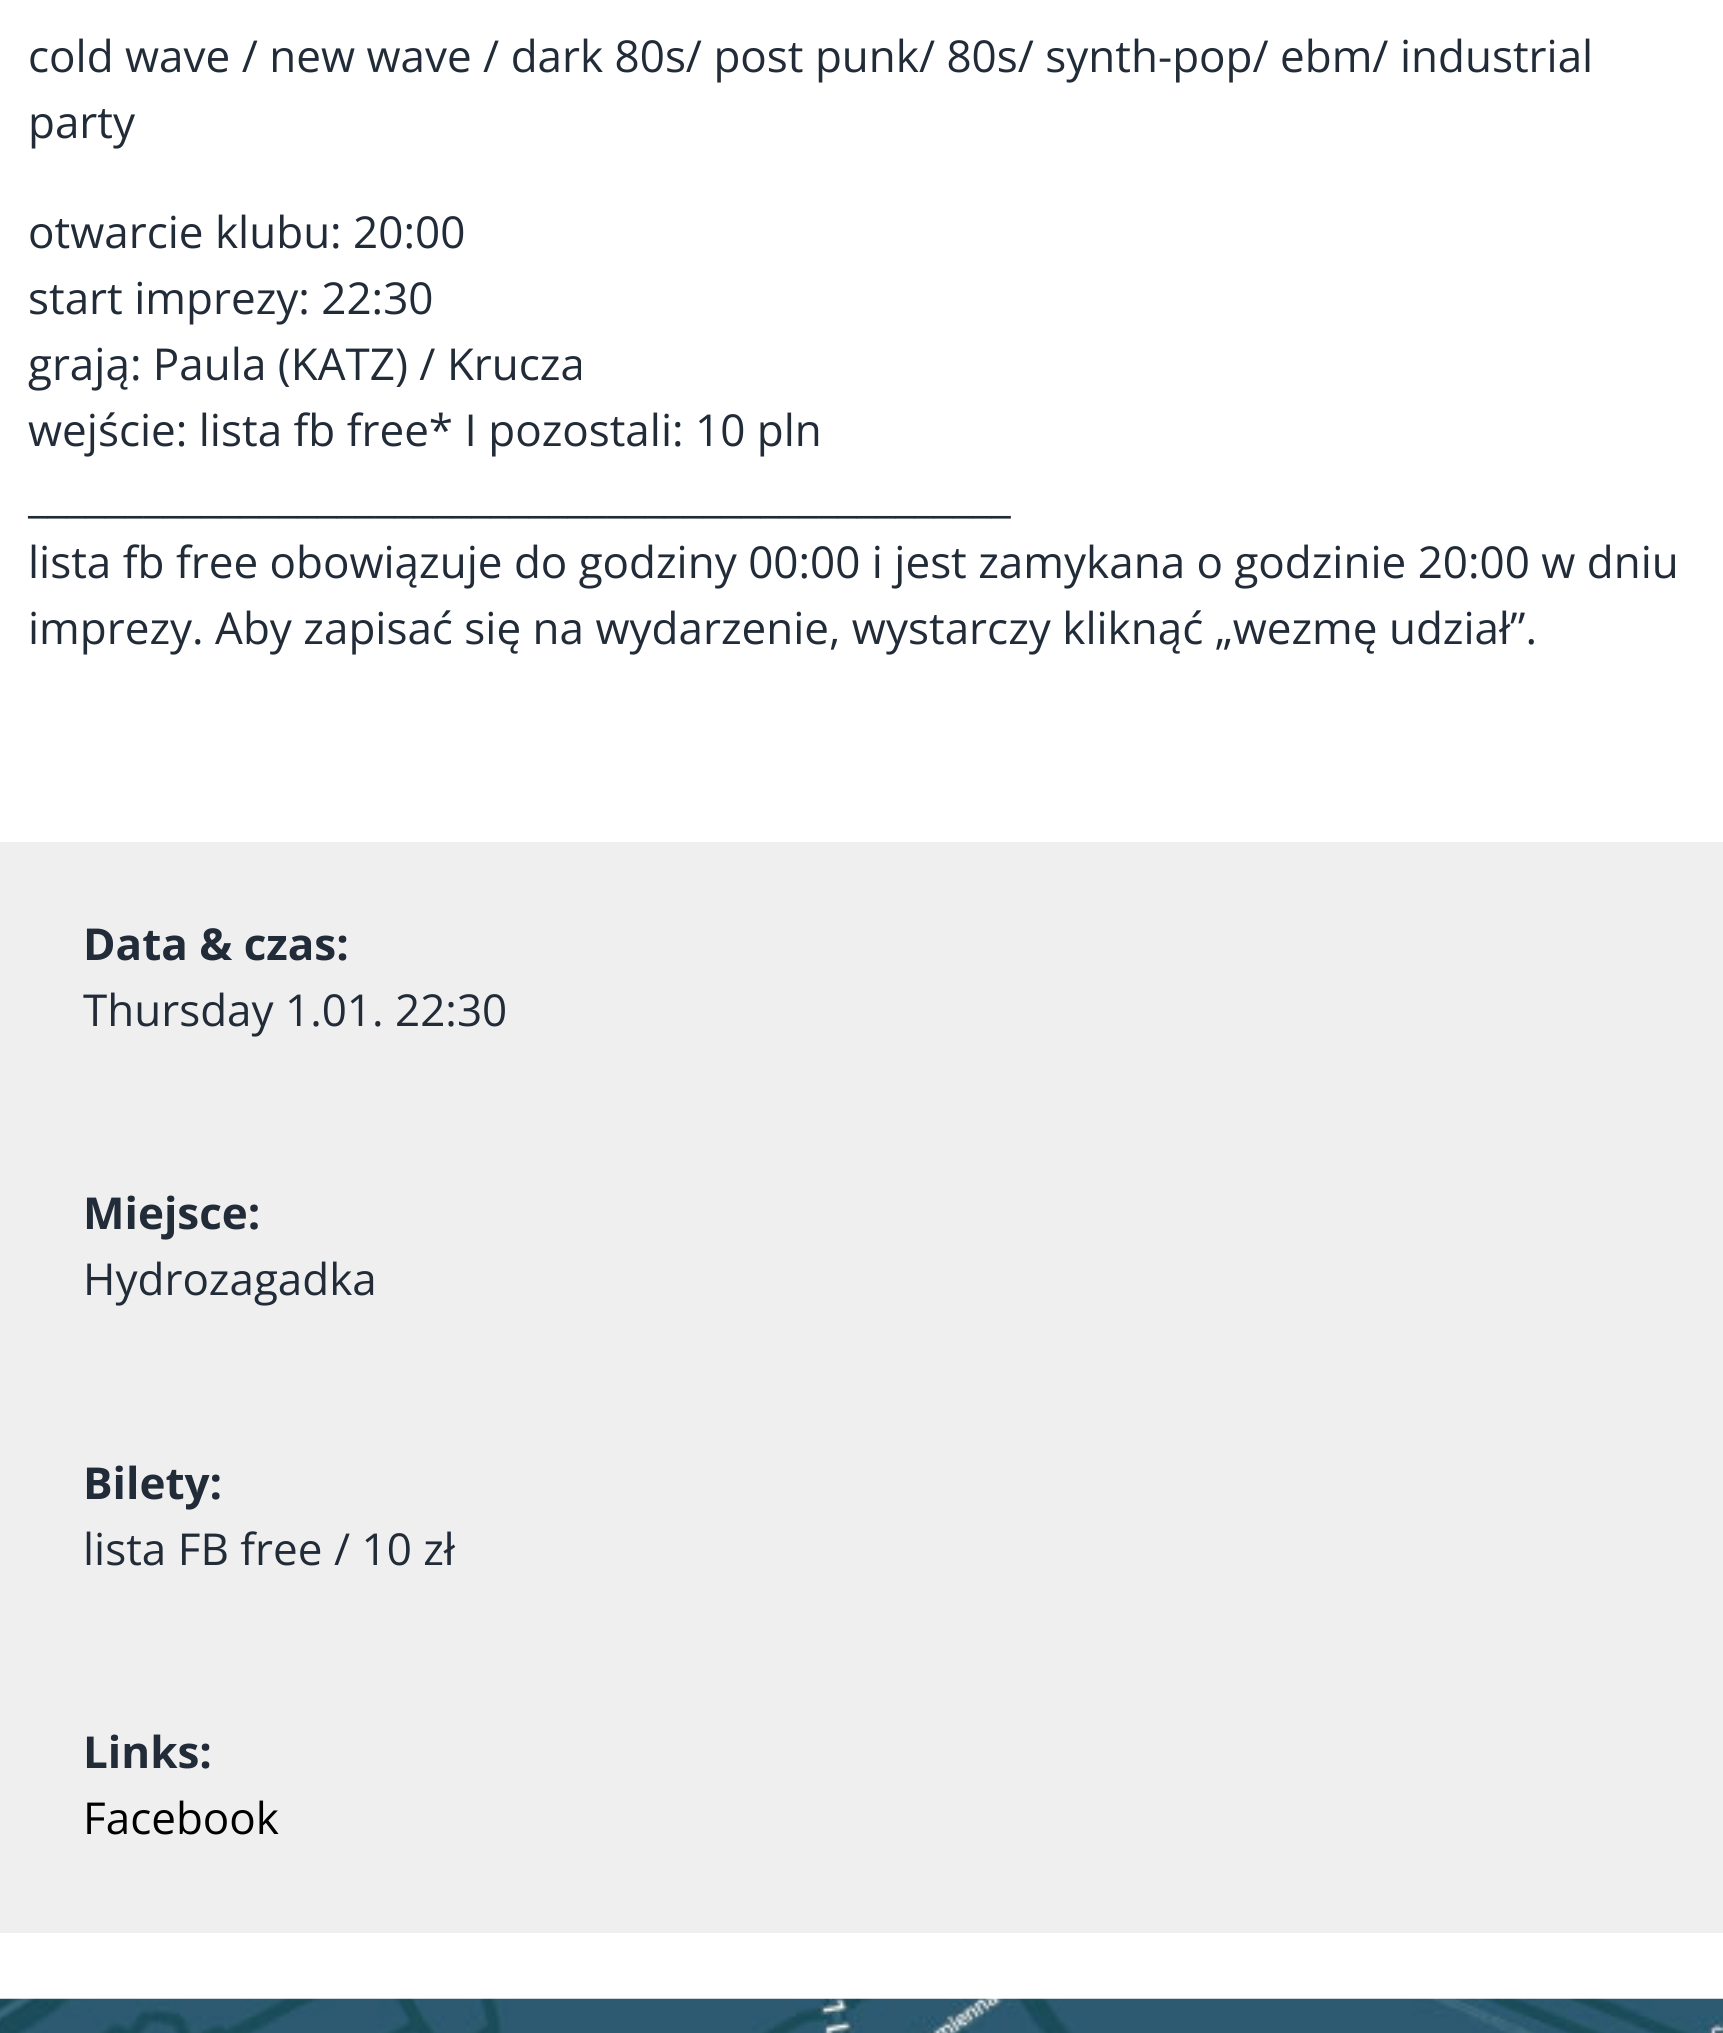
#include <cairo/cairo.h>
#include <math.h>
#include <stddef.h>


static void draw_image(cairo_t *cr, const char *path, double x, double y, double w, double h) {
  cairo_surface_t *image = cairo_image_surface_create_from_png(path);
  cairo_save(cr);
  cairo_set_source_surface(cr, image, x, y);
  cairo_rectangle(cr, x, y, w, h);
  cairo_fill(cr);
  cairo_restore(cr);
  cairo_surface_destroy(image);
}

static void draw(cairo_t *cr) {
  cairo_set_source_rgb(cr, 1, 1, 1);
  cairo_paint(cr);
  cairo_set_source_rgb(cr, 239 / 255.0, 239 / 255.0, 239 / 255.0);
  cairo_rectangle(cr, 0, 842, 1723, 1091);
  cairo_fill(cr);
  draw_image(cr, "images/1.png", 0, 1998, 1723, 35);
  cairo_select_font_face(cr, "Open Sans", CAIRO_FONT_SLANT_NORMAL, CAIRO_FONT_WEIGHT_NORMAL);
  cairo_set_font_size(cr, 44);
  cairo_set_source_rgb(cr, 34 / 255.0, 44 / 255.0, 57 / 255.0);
  cairo_move_to(cr, 28, 72);
  cairo_show_text(cr, "cold wave / new wave / dark 80s/ post punk/ 80s/ synth-pop/ ebm/ industrial");
  cairo_move_to(cr, 28, 138);
  cairo_show_text(cr, "party");
  cairo_move_to(cr, 28, 248);
  cairo_show_text(cr, "otwarcie klubu: 20:00");
  cairo_move_to(cr, 28, 314);
  cairo_show_text(cr, "start imprezy: 22:30");
  cairo_move_to(cr, 28, 380);
  cairo_show_text(cr, "grają: Paula (KATZ) / Krucza");
  cairo_move_to(cr, 28, 446);
  cairo_show_text(cr, "wejście: lista fb free* I pozostali: 10 pln");
  cairo_move_to(cr, 28, 512);
  cairo_show_text(cr, "___________________________________________________");
  cairo_move_to(cr, 28, 578);
  cairo_show_text(cr, "lista fb free obowiązuje do godziny 00:00 i jest zamykana o godzinie 20:00 w dniu");
  cairo_move_to(cr, 28, 644);
  cairo_show_text(cr, "imprezy. Aby zapisać się na wydarzenie, wystarczy kliknąć „wezmę udział”.");
  cairo_select_font_face(cr, "Open Sans", CAIRO_FONT_SLANT_NORMAL, CAIRO_FONT_WEIGHT_BOLD);
  cairo_move_to(cr, 83, 960);
  cairo_show_text(cr, "Data & czas:");
  cairo_select_font_face(cr, "Open Sans", CAIRO_FONT_SLANT_NORMAL, CAIRO_FONT_WEIGHT_NORMAL);
  cairo_move_to(cr, 83, 1026);
  cairo_show_text(cr, "Thursday 1.01. 22:30");
  cairo_select_font_face(cr, "Open Sans", CAIRO_FONT_SLANT_NORMAL, CAIRO_FONT_WEIGHT_BOLD);
  cairo_move_to(cr, 83, 1229);
  cairo_show_text(cr, "Miejsce:");
  cairo_select_font_face(cr, "Open Sans", CAIRO_FONT_SLANT_NORMAL, CAIRO_FONT_WEIGHT_NORMAL);
  cairo_move_to(cr, 83, 1295);
  cairo_show_text(cr, "Hydrozagadka");
  cairo_select_font_face(cr, "Open Sans", CAIRO_FONT_SLANT_NORMAL, CAIRO_FONT_WEIGHT_BOLD);
  cairo_move_to(cr, 83, 1499);
  cairo_show_text(cr, "Bilety:");
  cairo_select_font_face(cr, "Open Sans", CAIRO_FONT_SLANT_NORMAL, CAIRO_FONT_WEIGHT_NORMAL);
  cairo_move_to(cr, 83, 1565);
  cairo_show_text(cr, "lista FB free / 10 zł");
  cairo_select_font_face(cr, "Open Sans", CAIRO_FONT_SLANT_NORMAL, CAIRO_FONT_WEIGHT_BOLD);
  cairo_move_to(cr, 83, 1768);
  cairo_show_text(cr, "Links:");
  cairo_select_font_face(cr, "Open Sans", CAIRO_FONT_SLANT_NORMAL, CAIRO_FONT_WEIGHT_NORMAL);
  cairo_set_source_rgb(cr, 0, 0, 0);
  cairo_move_to(cr, 83, 1834);
  cairo_show_text(cr, "Facebook");
}

int main(void) {
  cairo_surface_t *surface = cairo_image_surface_create(CAIRO_FORMAT_RGB24, 1723, 2033);
  cairo_t *cr = cairo_create(surface);
  cairo_font_options_t *options = cairo_font_options_create();
  cairo_font_options_set_hint_metrics(options, CAIRO_HINT_METRICS_OFF);
  cairo_font_options_set_hint_style(options, CAIRO_HINT_STYLE_NONE);
  cairo_set_font_options(cr, options);
  cairo_set_miter_limit(cr, 4);
  draw(cr);
  cairo_surface_write_to_png(surface, "out.png");
  cairo_font_options_destroy(options);
  cairo_destroy(cr);
  cairo_surface_destroy(surface);
  return 0;
}
